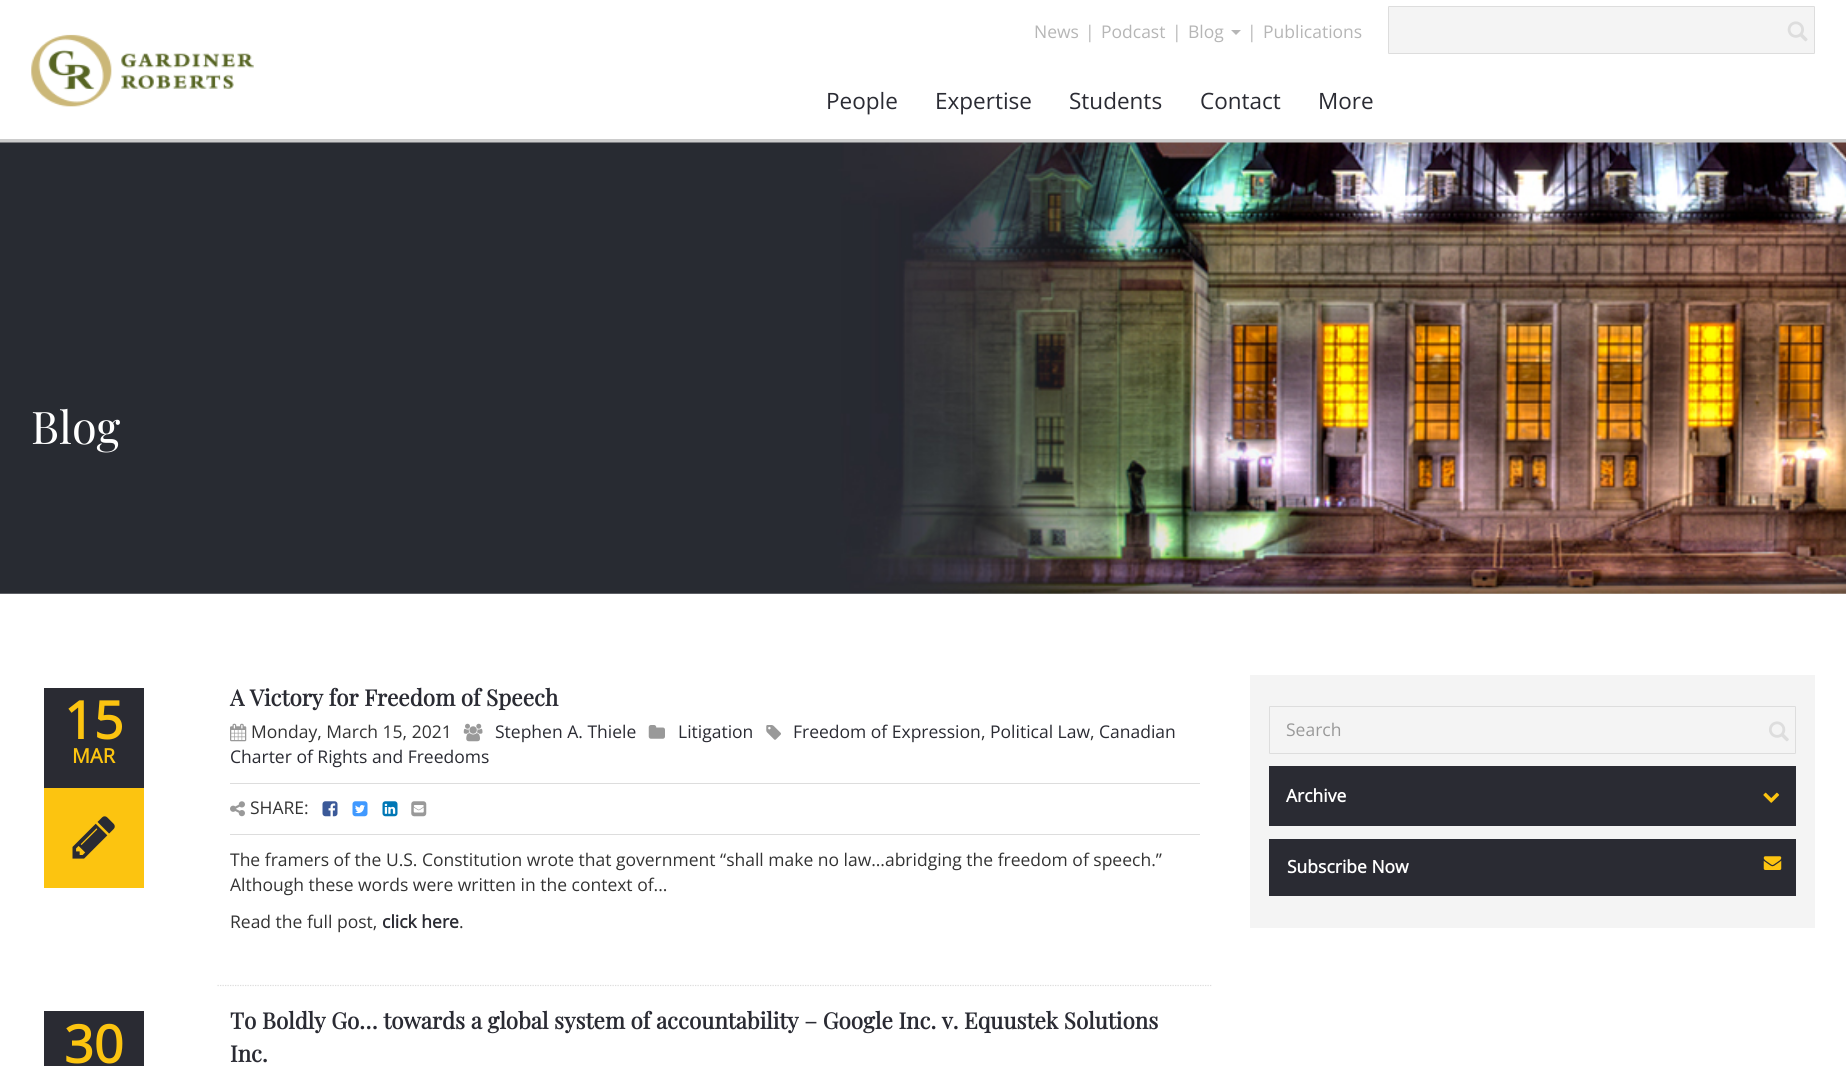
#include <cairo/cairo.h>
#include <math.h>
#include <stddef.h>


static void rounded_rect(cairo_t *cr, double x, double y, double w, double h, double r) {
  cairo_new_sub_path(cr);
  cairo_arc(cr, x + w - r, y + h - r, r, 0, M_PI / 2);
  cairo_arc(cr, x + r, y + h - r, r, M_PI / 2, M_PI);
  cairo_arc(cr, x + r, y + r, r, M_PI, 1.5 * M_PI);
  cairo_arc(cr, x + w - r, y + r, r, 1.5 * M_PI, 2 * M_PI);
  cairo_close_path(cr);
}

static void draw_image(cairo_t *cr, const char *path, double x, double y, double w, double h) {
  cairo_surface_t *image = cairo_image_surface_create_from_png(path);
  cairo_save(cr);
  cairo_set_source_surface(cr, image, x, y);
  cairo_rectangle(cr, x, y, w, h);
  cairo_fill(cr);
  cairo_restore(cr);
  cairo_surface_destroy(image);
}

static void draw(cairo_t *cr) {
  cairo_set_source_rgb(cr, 1, 1, 1);
  cairo_paint(cr);
  cairo_set_source_rgb(cr, 204 / 255.0, 204 / 255.0, 204 / 255.0);
  cairo_rectangle(cr, 0, 139, 1846, 4);
  cairo_fill(cr);
  draw_image(cr, "images/1.png", 31, 34, 223, 73);
  cairo_set_source_rgb(cr, 182 / 255.0, 182 / 255.0, 182 / 255.0);
  cairo_new_path(cr);
  cairo_move_to(cr, 1231, 30);
  cairo_line_to(cr, 1241, 30);
  cairo_line_to(cr, 1236, 35);
  cairo_close_path(cr);
  cairo_fill(cr);
  cairo_set_source_rgb(cr, 244 / 255.0, 244 / 255.0, 244 / 255.0);
  rounded_rect(cr, 1388.5, 6.5, 426, 47, 0.5);
  cairo_fill_preserve(cr);
  cairo_set_source_rgb(cr, 221 / 255.0, 221 / 255.0, 221 / 255.0);
  cairo_set_line_width(cr, 1);
  cairo_stroke(cr);
  draw_image(cr, "images/2.png", 1787, 21, 21, 21);
  draw_image(cr, "images/3.png", 0, 142, 1846, 452);
  cairo_set_source_rgb(cr, 42 / 255.0, 43 / 255.0, 51 / 255.0);
  cairo_rectangle(cr, 44, 688, 100, 100);
  cairo_fill(cr);
  cairo_set_source_rgb(cr, 252 / 255.0, 196 / 255.0, 16 / 255.0);
  cairo_rectangle(cr, 44, 788, 100, 100);
  cairo_fill(cr);
  draw_image(cr, "images/4.png", 72, 816, 43, 43);
  cairo_new_path(cr);
  cairo_move_to(cr, 217.5, 985.5);
  cairo_line_to(cr, 1212.5, 985.5);
  cairo_set_source_rgb(cr, 221 / 255.0, 221 / 255.0, 221 / 255.0);
  cairo_set_line_width(cr, 1.2);
  cairo_set_dash(cr, (double[]){1.25, 1.25}, 2, 0);
  cairo_stroke(cr);
  cairo_rectangle(cr, 230, 783, 970, 1);
  cairo_fill(cr);
  draw_image(cr, "images/5.png", 230, 723, 17, 19);
  draw_image(cr, "images/6.png", 463, 723, 20, 19);
  draw_image(cr, "images/7.png", 648, 725, 17, 14);
  draw_image(cr, "images/8.png", 766, 725, 15, 15);
  cairo_rectangle(cr, 230, 834, 970, 1);
  cairo_fill(cr);
  draw_image(cr, "images/9.png", 230, 801, 15, 16);
  draw_image(cr, "images/10.png", 322, 801, 16, 16);
  draw_image(cr, "images/11.png", 352, 801, 16, 16);
  draw_image(cr, "images/12.png", 382, 801, 16, 16);
  draw_image(cr, "images/13.png", 411, 801, 16, 16);
  cairo_set_source_rgb(cr, 42 / 255.0, 43 / 255.0, 51 / 255.0);
  cairo_rectangle(cr, 44, 1011, 100, 55);
  cairo_fill(cr);
  cairo_set_source_rgb(cr, 244 / 255.0, 244 / 255.0, 244 / 255.0);
  cairo_rectangle(cr, 1250, 675, 565, 253);
  cairo_fill(cr);
  rounded_rect(cr, 1269.5, 706.5, 526, 47, 0.5);
  cairo_set_source_rgb(cr, 221 / 255.0, 221 / 255.0, 221 / 255.0);
  cairo_set_line_width(cr, 1);
  cairo_set_dash(cr, NULL, 0, 0);
  cairo_stroke(cr);
  draw_image(cr, "images/14.png", 1769, 721, 20, 21);
  cairo_set_source_rgb(cr, 42 / 255.0, 43 / 255.0, 51 / 255.0);
  cairo_rectangle(cr, 1269, 766, 527, 60);
  cairo_fill(cr);
  draw_image(cr, "images/15.png", 1763, 792, 17, 11);
  cairo_rectangle(cr, 1269, 839, 527, 57);
  cairo_fill(cr);
  draw_image(cr, "images/16.png", 1763, 856, 19, 14);
  cairo_select_font_face(cr, "Open Sans", CAIRO_FONT_SLANT_NORMAL, CAIRO_FONT_WEIGHT_NORMAL);
  cairo_set_font_size(cr, 17.5);
  cairo_set_source_rgb(cr, 182 / 255.0, 182 / 255.0, 182 / 255.0);
  cairo_move_to(cr, 1034, 38);
  cairo_show_text(cr, "News");
  cairo_move_to(cr, 1085, 38);
  cairo_show_text(cr, "|");
  cairo_move_to(cr, 1101, 38);
  cairo_show_text(cr, "Podcast");
  cairo_move_to(cr, 1172, 38);
  cairo_show_text(cr, "|");
  cairo_move_to(cr, 1188, 38);
  cairo_show_text(cr, "Blog");
  cairo_move_to(cr, 1247, 38);
  cairo_show_text(cr, "|");
  cairo_move_to(cr, 1263, 38);
  cairo_show_text(cr, "Publications");
  cairo_set_font_size(cr, 22.5);
  cairo_set_source_rgb(cr, 42 / 255.0, 43 / 255.0, 51 / 255.0);
  cairo_move_to(cr, 826, 109);
  cairo_show_text(cr, "People");
  cairo_move_to(cr, 935, 109);
  cairo_show_text(cr, "Expertise");
  cairo_move_to(cr, 1069, 109);
  cairo_show_text(cr, "Students");
  cairo_move_to(cr, 1200, 109);
  cairo_show_text(cr, "Contact");
  cairo_move_to(cr, 1318, 109);
  cairo_show_text(cr, "More");
  cairo_select_font_face(cr, "Playfair Display", CAIRO_FONT_SLANT_NORMAL, CAIRO_FONT_WEIGHT_NORMAL);
  cairo_set_font_size(cr, 45);
  cairo_set_source_rgb(cr, 1, 1, 1);
  cairo_move_to(cr, 31, 444);
  cairo_show_text(cr, "Blog");
  cairo_select_font_face(cr, "Open Sans", CAIRO_FONT_SLANT_NORMAL, CAIRO_FONT_WEIGHT_BOLD);
  cairo_set_font_size(cr, 52);
  cairo_set_source_rgb(cr, 252 / 255.0, 196 / 255.0, 16 / 255.0);
  cairo_move_to(cr, 64, 739);
  cairo_show_text(cr, "15");
  cairo_set_font_size(cr, 20);
  cairo_move_to(cr, 72, 763);
  cairo_show_text(cr, "MAR");
  cairo_select_font_face(cr, "Playfair Display", CAIRO_FONT_SLANT_NORMAL, CAIRO_FONT_WEIGHT_BOLD);
  cairo_set_font_size(cr, 22.5);
  cairo_set_source_rgb(cr, 42 / 255.0, 43 / 255.0, 51 / 255.0);
  cairo_move_to(cr, 230, 706);
  cairo_show_text(cr, "A Victory for Freedom of Speech");
  cairo_select_font_face(cr, "Open Sans", CAIRO_FONT_SLANT_NORMAL, CAIRO_FONT_WEIGHT_NORMAL);
  cairo_set_font_size(cr, 17.5);
  cairo_set_source_rgb(cr, 51 / 255.0, 51 / 255.0, 51 / 255.0);
  cairo_move_to(cr, 251, 738);
  cairo_show_text(cr, "Monday, March 15, 2021");
  cairo_set_source_rgb(cr, 42 / 255.0, 43 / 255.0, 51 / 255.0);
  cairo_move_to(cr, 495, 738);
  cairo_show_text(cr, "Stephen A. Thiele");
  cairo_move_to(cr, 678, 738);
  cairo_show_text(cr, "Litigation");
  cairo_move_to(cr, 793, 738);
  cairo_show_text(cr, "Freedom of Expression");
  cairo_set_source_rgb(cr, 51 / 255.0, 51 / 255.0, 51 / 255.0);
  cairo_move_to(cr, 981, 738);
  cairo_show_text(cr, ",");
  cairo_set_source_rgb(cr, 42 / 255.0, 43 / 255.0, 51 / 255.0);
  cairo_move_to(cr, 990, 738);
  cairo_show_text(cr, "Political Law");
  cairo_set_source_rgb(cr, 51 / 255.0, 51 / 255.0, 51 / 255.0);
  cairo_move_to(cr, 1090, 738);
  cairo_show_text(cr, ",");
  cairo_set_source_rgb(cr, 42 / 255.0, 43 / 255.0, 51 / 255.0);
  cairo_move_to(cr, 1099, 738);
  cairo_show_text(cr, "Canadian");
  cairo_move_to(cr, 230, 763);
  cairo_show_text(cr, "Charter of Rights and Freedoms");
  cairo_set_source_rgb(cr, 51 / 255.0, 51 / 255.0, 51 / 255.0);
  cairo_move_to(cr, 250, 814);
  cairo_show_text(cr, "SHARE:");
  cairo_move_to(cr, 230, 866);
  cairo_show_text(cr, "The framers of the U.S. Constitution wrote that government “shall make no law…abridging the freedom of speech.”");
  cairo_move_to(cr, 230, 891);
  cairo_show_text(cr, "Although these words were written in the context of...");
  cairo_move_to(cr, 230, 928);
  cairo_show_text(cr, "Read the full post,");
  cairo_select_font_face(cr, "Open Sans", CAIRO_FONT_SLANT_NORMAL, CAIRO_FONT_WEIGHT_BOLD);
  cairo_set_source_rgb(cr, 42 / 255.0, 43 / 255.0, 51 / 255.0);
  cairo_move_to(cr, 382, 928);
  cairo_show_text(cr, "click here");
  cairo_select_font_face(cr, "Open Sans", CAIRO_FONT_SLANT_NORMAL, CAIRO_FONT_WEIGHT_NORMAL);
  cairo_set_source_rgb(cr, 51 / 255.0, 51 / 255.0, 51 / 255.0);
  cairo_move_to(cr, 459, 928);
  cairo_show_text(cr, ".");
  cairo_select_font_face(cr, "Open Sans", CAIRO_FONT_SLANT_NORMAL, CAIRO_FONT_WEIGHT_BOLD);
  cairo_set_font_size(cr, 52);
  cairo_set_source_rgb(cr, 252 / 255.0, 196 / 255.0, 16 / 255.0);
  cairo_move_to(cr, 64, 1063);
  cairo_show_text(cr, "30");
  cairo_select_font_face(cr, "Playfair Display", CAIRO_FONT_SLANT_NORMAL, CAIRO_FONT_WEIGHT_BOLD);
  cairo_set_font_size(cr, 22.5);
  cairo_set_source_rgb(cr, 42 / 255.0, 43 / 255.0, 51 / 255.0);
  cairo_move_to(cr, 230, 1029);
  cairo_show_text(cr, "To Boldly Go… towards a global system of accountability – Google Inc. v. Equustek Solutions");
  cairo_move_to(cr, 230, 1062);
  cairo_show_text(cr, "Inc.");
  cairo_select_font_face(cr, "Open Sans", CAIRO_FONT_SLANT_NORMAL, CAIRO_FONT_WEIGHT_NORMAL);
  cairo_set_font_size(cr, 17.5);
  cairo_set_source_rgb(cr, 153 / 255.0, 153 / 255.0, 153 / 255.0);
  cairo_move_to(cr, 1286, 736);
  cairo_show_text(cr, "Search");
  cairo_select_font_face(cr, "Open Sans", CAIRO_FONT_SLANT_NORMAL, CAIRO_FONT_WEIGHT_BOLD);
  cairo_set_source_rgb(cr, 1, 1, 1);
  cairo_move_to(cr, 1286, 802);
  cairo_show_text(cr, "Archive");
  cairo_move_to(cr, 1287, 873);
  cairo_show_text(cr, "Subscribe Now");
}

int main(void) {
  cairo_surface_t *surface = cairo_image_surface_create(CAIRO_FORMAT_RGB24, 1846, 1066);
  cairo_t *cr = cairo_create(surface);
  cairo_font_options_t *options = cairo_font_options_create();
  cairo_font_options_set_hint_metrics(options, CAIRO_HINT_METRICS_OFF);
  cairo_font_options_set_hint_style(options, CAIRO_HINT_STYLE_NONE);
  cairo_set_font_options(cr, options);
  cairo_set_miter_limit(cr, 4);
  draw(cr);
  cairo_surface_write_to_png(surface, "out.png");
  cairo_font_options_destroy(options);
  cairo_destroy(cr);
  cairo_surface_destroy(surface);
  return 0;
}
